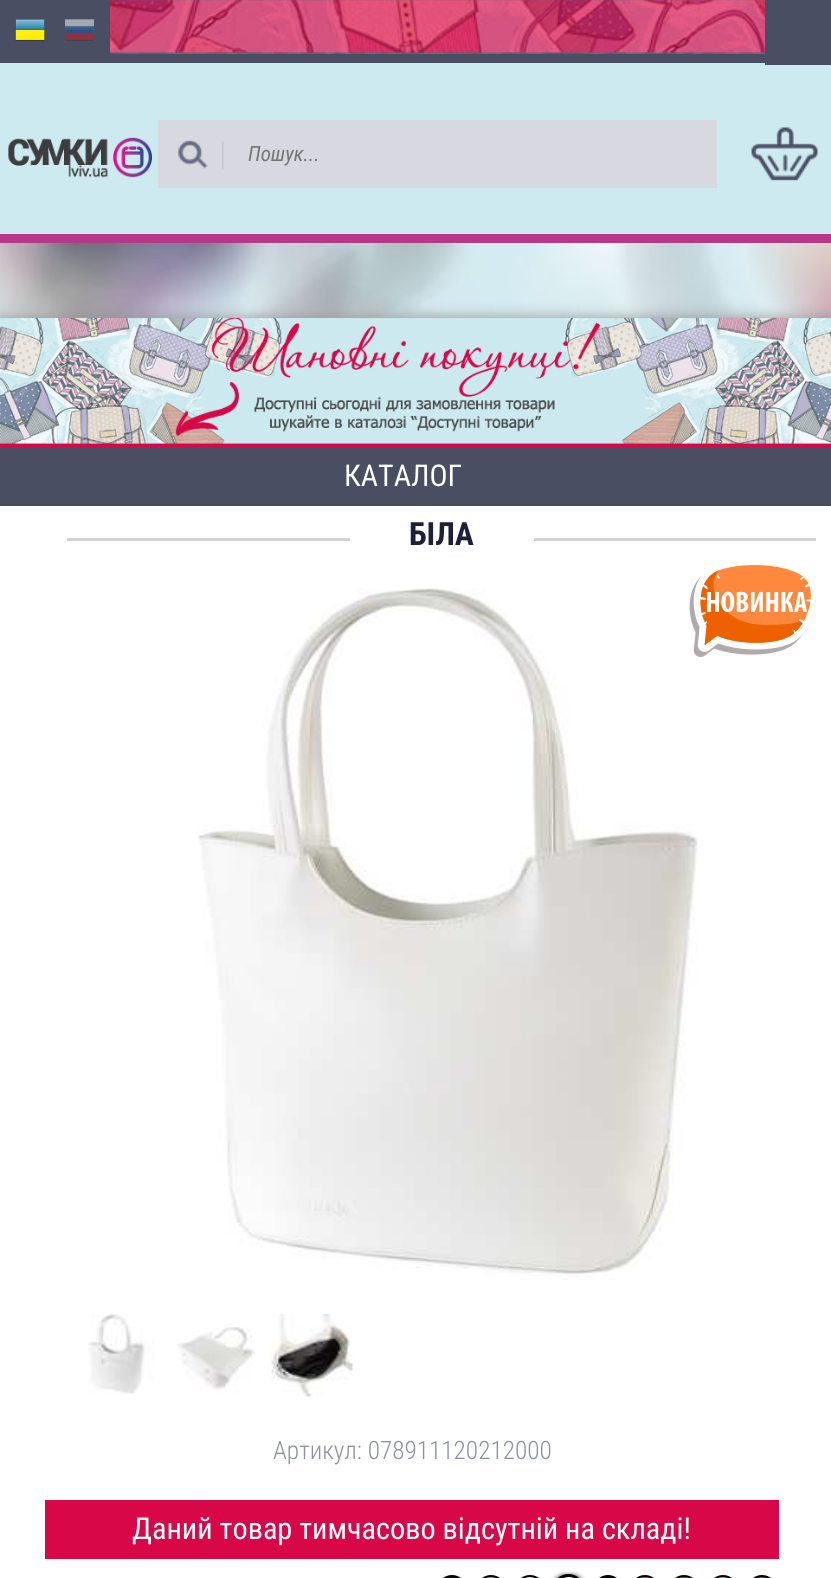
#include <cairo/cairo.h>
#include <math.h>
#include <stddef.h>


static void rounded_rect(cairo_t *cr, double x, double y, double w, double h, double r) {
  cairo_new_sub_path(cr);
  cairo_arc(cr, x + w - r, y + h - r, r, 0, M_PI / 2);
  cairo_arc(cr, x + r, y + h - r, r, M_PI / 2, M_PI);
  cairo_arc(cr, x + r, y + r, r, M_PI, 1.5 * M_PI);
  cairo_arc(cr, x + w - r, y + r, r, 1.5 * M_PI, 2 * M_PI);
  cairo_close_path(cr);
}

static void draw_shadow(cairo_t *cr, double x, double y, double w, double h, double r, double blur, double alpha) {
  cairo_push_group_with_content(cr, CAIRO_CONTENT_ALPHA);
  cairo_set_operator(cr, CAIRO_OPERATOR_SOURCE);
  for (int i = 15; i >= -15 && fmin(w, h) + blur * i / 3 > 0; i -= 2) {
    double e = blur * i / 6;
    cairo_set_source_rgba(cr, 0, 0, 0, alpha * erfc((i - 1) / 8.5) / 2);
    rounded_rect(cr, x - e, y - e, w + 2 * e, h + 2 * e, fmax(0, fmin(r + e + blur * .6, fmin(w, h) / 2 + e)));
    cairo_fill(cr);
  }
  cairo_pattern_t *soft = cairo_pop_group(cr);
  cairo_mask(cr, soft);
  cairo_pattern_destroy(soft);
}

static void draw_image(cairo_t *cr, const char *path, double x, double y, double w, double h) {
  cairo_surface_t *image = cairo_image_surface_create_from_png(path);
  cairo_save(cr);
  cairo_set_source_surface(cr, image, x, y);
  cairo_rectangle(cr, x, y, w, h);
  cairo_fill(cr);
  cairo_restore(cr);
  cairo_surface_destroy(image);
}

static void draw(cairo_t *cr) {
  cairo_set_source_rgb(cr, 1, 1, 1);
  cairo_paint(cr);
  draw_image(cr, "images/1.png", 110, 0, 655, 54);
  cairo_set_source_rgb(cr, 74 / 255.0, 78 / 255.0, 99 / 255.0);
  cairo_rectangle(cr, 0, 54, 765, 9);
  cairo_fill(cr);
  cairo_rectangle(cr, 0, 0, 110, 54);
  cairo_fill(cr);
  draw_image(cr, "images/2.png", 15, 19, 30, 22);
  draw_image(cr, "images/3.png", 65, 19, 29, 22);
  cairo_set_source_rgb(cr, 205 / 255.0, 234 / 255.0, 240 / 255.0);
  cairo_rectangle(cr, 0, 63, 831, 171);
  cairo_fill(cr);
  cairo_set_source_rgb(cr, 74 / 255.0, 78 / 255.0, 99 / 255.0);
  cairo_rectangle(cr, 765, 0, 66, 65);
  cairo_fill(cr);
  cairo_set_source_rgb(cr, 181 / 255.0, 57 / 255.0, 134 / 255.0);
  cairo_rectangle(cr, 0, 234, 831, 9);
  cairo_fill(cr);
  draw_image(cr, "images/4.png", 8, 137, 144, 41);
  cairo_set_source_rgb(cr, 216 / 255.0, 217 / 255.0, 224 / 255.0);
  cairo_rectangle(cr, 158, 120, 559, 68);
  cairo_fill(cr);
  draw_image(cr, "images/5.png", 178, 140, 46, 30);
  draw_image(cr, "images/6.png", 751, 127, 67, 54);
  draw_image(cr, "images/7.png", 0, 243, 831, 75);
  cairo_set_source_rgb(cr, 150 / 255.0, 150 / 255.0, 150 / 255.0);
  draw_shadow(cr, 0, 318, 831, 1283, 0, 7.5, 1);
  cairo_set_source_rgb(cr, 1, 1, 1);
  cairo_rectangle(cr, 0, 506, 831, 1072);
  cairo_fill(cr);
  draw_image(cr, "images/8.png", 0, 318, 831, 129);
  cairo_set_source_rgb(cr, 74 / 255.0, 78 / 255.0, 99 / 255.0);
  cairo_rectangle(cr, 0, 447, 831, 59);
  cairo_fill(cr);
  cairo_set_source_rgb(cr, 208 / 255.0, 210 / 255.0, 215 / 255.0);
  cairo_rectangle(cr, 67, 538, 749, 3);
  cairo_fill(cr);
  cairo_set_source_rgb(cr, 1, 1, 1);
  cairo_rectangle(cr, 350, 538, 184, 3);
  cairo_fill(cr);
  draw_image(cr, "images/9.png", 198, 588, 500, 692);
  draw_image(cr, "images/10.png", 689, 565, 122, 92);
  draw_image(cr, "images/11.png", 88, 1314, 66, 80);
  draw_image(cr, "images/12.png", 177, 1327, 78, 66);
  draw_image(cr, "images/13.png", 270, 1314, 83, 83);
  cairo_set_source_rgb(cr, 216 / 255.0, 8 / 255.0, 72 / 255.0);
  cairo_rectangle(cr, 45, 1500, 734, 59);
  cairo_fill(cr);
  cairo_set_source_rgb(cr, 49 / 255.0, 14 / 255.0, 12 / 255.0);
  rounded_rect(cr, 438, 1576, 28, 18, 14);
  cairo_fill_preserve(cr);
  cairo_set_source_rgb(cr, 0, 0, 0);
  cairo_stroke(cr);
  cairo_set_source_rgb(cr, 172 / 255.0, 171 / 255.0, 171 / 255.0);
  rounded_rect(cr, 477, 1576, 28, 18, 14);
  cairo_fill_preserve(cr);
  cairo_set_source_rgb(cr, 0, 0, 0);
  cairo_stroke(cr);
  cairo_set_source_rgb(cr, 241 / 255.0, 228 / 255.0, 220 / 255.0);
  rounded_rect(cr, 516, 1576, 28, 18, 14);
  cairo_fill_preserve(cr);
  cairo_set_source_rgb(cr, 0, 0, 0);
  cairo_stroke(cr);
  cairo_set_source_rgb(cr, 0, 0, 0);
  draw_shadow(cr, 552, 1574, 33, 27, 16.5, 2, 0.5);
  rounded_rect(cr, 553, 1575, 31, 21, 15.5);
  cairo_set_source_rgb(cr, 0, 0, 0);
  cairo_stroke(cr);
  cairo_set_source_rgb(cr, 1, 1, 1);
  rounded_rect(cr, 555, 1576, 28, 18, 14);
  cairo_fill_preserve(cr);
  cairo_set_source_rgb(cr, 0, 0, 0);
  cairo_stroke(cr);
  rounded_rect(cr, 594, 1576, 28, 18, 14);
  cairo_fill_preserve(cr);
  cairo_stroke(cr);
  cairo_set_source_rgb(cr, 137 / 255.0, 112 / 255.0, 96 / 255.0);
  rounded_rect(cr, 631, 1576, 28, 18, 14);
  cairo_fill_preserve(cr);
  cairo_set_source_rgb(cr, 0, 0, 0);
  cairo_stroke(cr);
  cairo_set_source_rgb(cr, 21 / 255.0, 142 / 255.0, 26 / 255.0);
  rounded_rect(cr, 670, 1576, 28, 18, 14);
  cairo_fill_preserve(cr);
  cairo_set_source_rgb(cr, 0, 0, 0);
  cairo_stroke(cr);
  cairo_set_source_rgb(cr, 1, 126 / 255.0, 49 / 255.0);
  rounded_rect(cr, 709, 1576, 28, 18, 14);
  cairo_fill_preserve(cr);
  cairo_set_source_rgb(cr, 0, 0, 0);
  cairo_stroke(cr);
  cairo_set_source_rgb(cr, 150 / 255.0, 75 / 255.0, 0);
  rounded_rect(cr, 748, 1576, 28, 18, 14);
  cairo_fill_preserve(cr);
  cairo_set_source_rgb(cr, 0, 0, 0);
  cairo_stroke(cr);
  cairo_select_font_face(cr, "Roboto Condensed", CAIRO_FONT_SLANT_ITALIC, CAIRO_FONT_WEIGHT_NORMAL);
  cairo_set_font_size(cr, 21);
  cairo_set_source_rgb(cr, 117 / 255.0, 117 / 255.0, 117 / 255.0);
  cairo_move_to(cr, 248, 161);
  cairo_show_text(cr, "Пошук...");
  cairo_select_font_face(cr, "Roboto Condensed", CAIRO_FONT_SLANT_NORMAL, CAIRO_FONT_WEIGHT_NORMAL);
  cairo_set_font_size(cr, 30);
  cairo_set_source_rgb(cr, 1, 1, 1);
  cairo_move_to(cr, 344, 486);
  cairo_show_text(cr, "КАТАЛОГ");
  cairo_select_font_face(cr, "Roboto Condensed", CAIRO_FONT_SLANT_NORMAL, CAIRO_FONT_WEIGHT_BOLD);
  cairo_set_font_size(cr, 32);
  cairo_set_source_rgb(cr, 28 / 255.0, 32 / 255.0, 56 / 255.0);
  cairo_move_to(cr, 409, 545);
  cairo_show_text(cr, "БІЛА");
  cairo_select_font_face(cr, "Roboto Condensed Light", CAIRO_FONT_SLANT_NORMAL, CAIRO_FONT_WEIGHT_NORMAL);
  cairo_set_font_size(cr, 25.25);
  cairo_set_source_rgb(cr, 138 / 255.0, 143 / 255.0, 161 / 255.0);
  cairo_move_to(cr, 273, 1459);
  cairo_show_text(cr, "Артикул: 078911120212000");
  cairo_select_font_face(cr, "Roboto Condensed", CAIRO_FONT_SLANT_NORMAL, CAIRO_FONT_WEIGHT_NORMAL);
  cairo_set_font_size(cr, 30.25);
  cairo_set_source_rgb(cr, 1, 1, 1);
  cairo_move_to(cr, 132, 1539);
  cairo_show_text(cr, "Даний товар тимчасово відсутній на складі!");
}

int main(void) {
  cairo_surface_t *surface = cairo_image_surface_create(CAIRO_FORMAT_RGB24, 831, 1578);
  cairo_t *cr = cairo_create(surface);
  cairo_font_options_t *options = cairo_font_options_create();
  cairo_font_options_set_hint_metrics(options, CAIRO_HINT_METRICS_OFF);
  cairo_font_options_set_hint_style(options, CAIRO_HINT_STYLE_NONE);
  cairo_set_font_options(cr, options);
  cairo_set_miter_limit(cr, 4);
  draw(cr);
  cairo_surface_write_to_png(surface, "out.png");
  cairo_font_options_destroy(options);
  cairo_destroy(cr);
  cairo_surface_destroy(surface);
  return 0;
}
